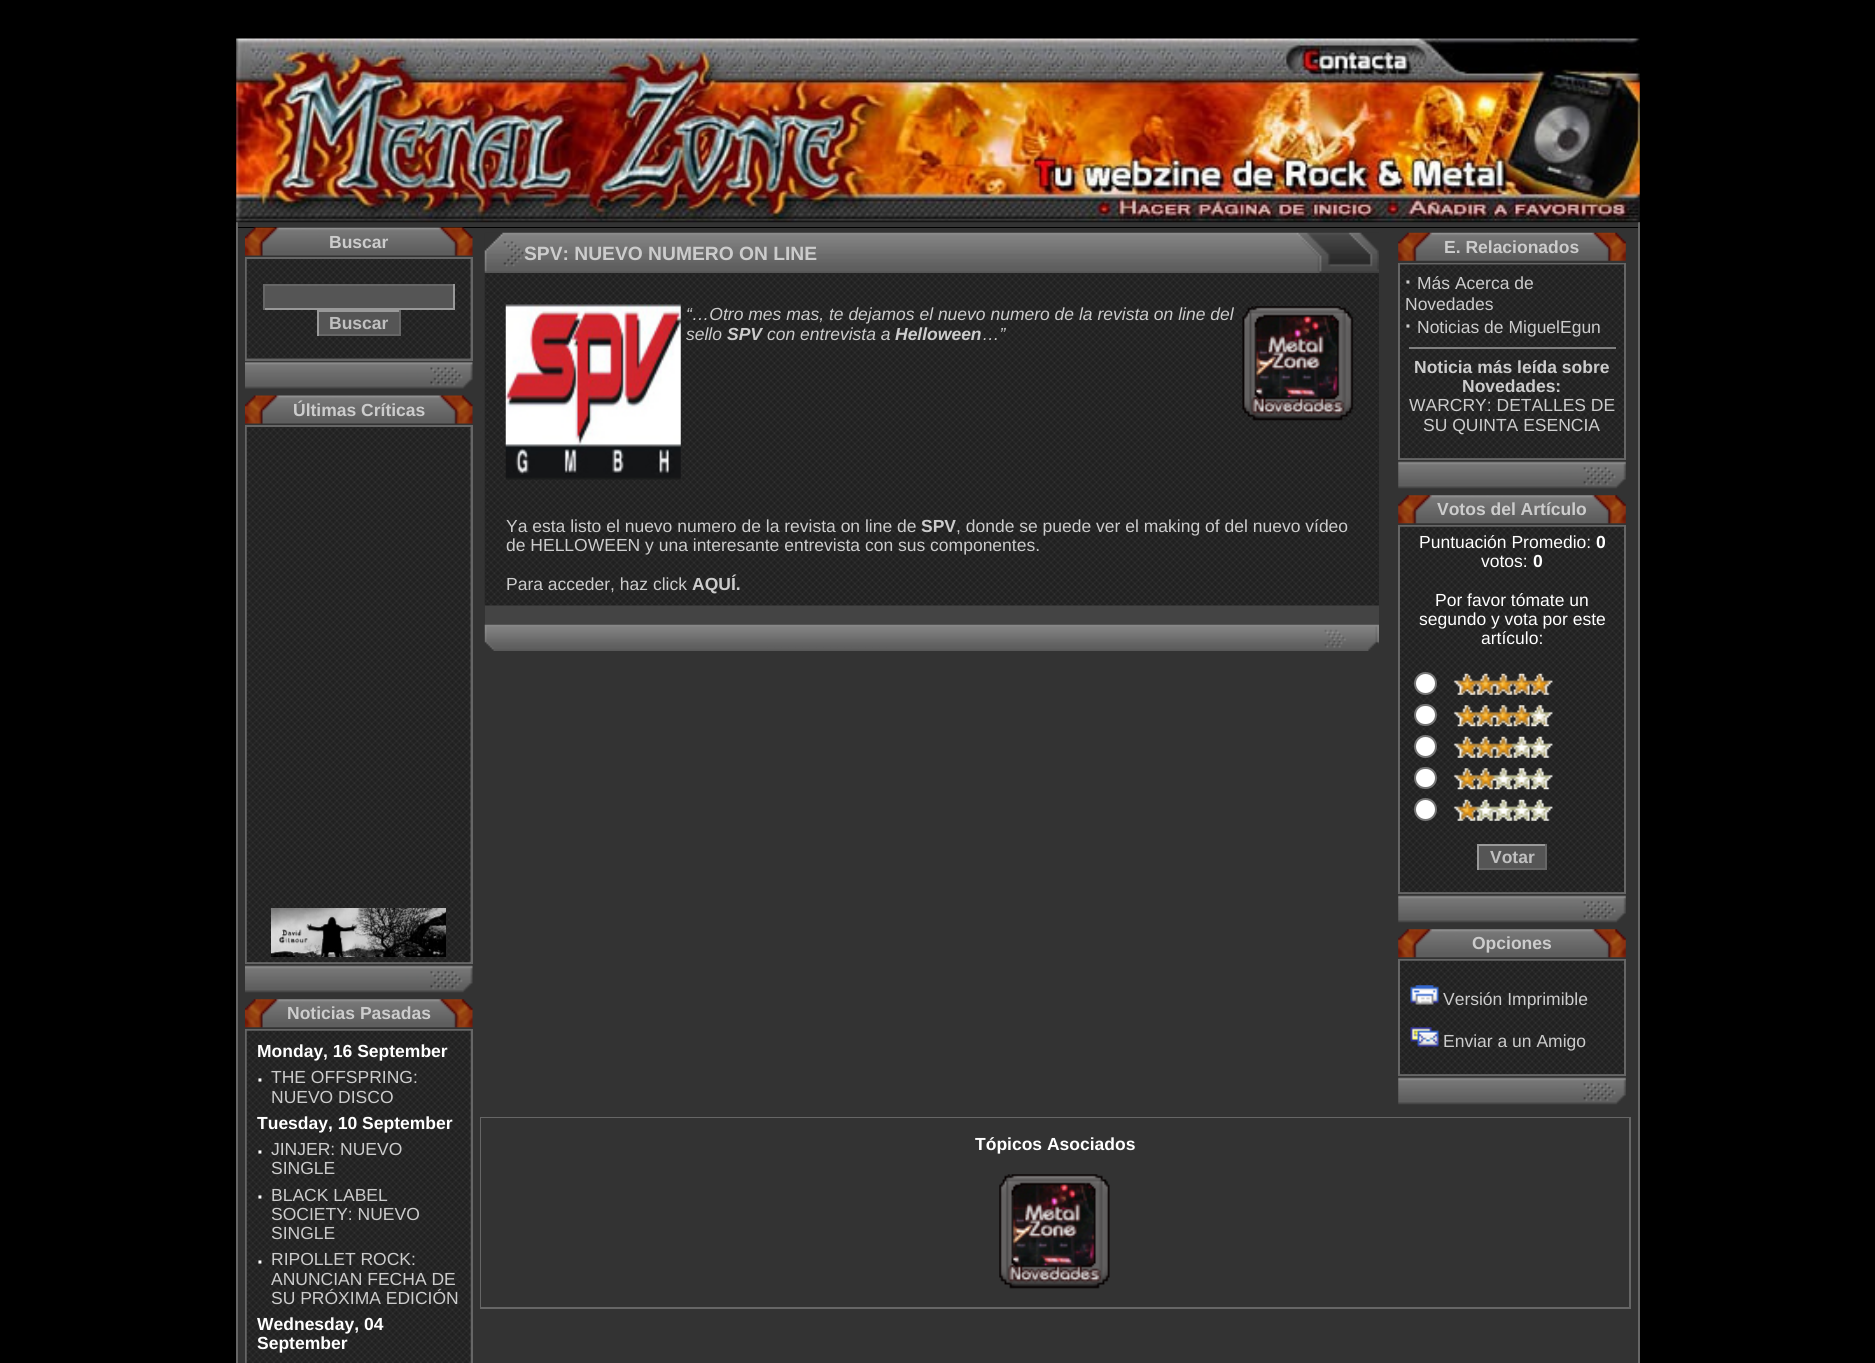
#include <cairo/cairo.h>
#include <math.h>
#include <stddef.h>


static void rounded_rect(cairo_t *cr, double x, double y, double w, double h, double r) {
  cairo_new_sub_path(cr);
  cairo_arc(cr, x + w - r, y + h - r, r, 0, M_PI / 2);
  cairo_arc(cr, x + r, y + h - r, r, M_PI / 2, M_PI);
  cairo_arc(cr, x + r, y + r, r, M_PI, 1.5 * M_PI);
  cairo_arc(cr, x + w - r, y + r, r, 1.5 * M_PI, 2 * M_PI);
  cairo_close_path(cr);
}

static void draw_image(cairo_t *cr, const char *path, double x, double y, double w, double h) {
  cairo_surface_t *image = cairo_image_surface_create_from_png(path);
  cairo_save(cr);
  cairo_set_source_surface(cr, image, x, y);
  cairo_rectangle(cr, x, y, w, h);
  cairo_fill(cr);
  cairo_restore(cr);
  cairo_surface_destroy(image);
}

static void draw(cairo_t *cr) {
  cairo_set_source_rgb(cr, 0, 0, 0);
  cairo_paint(cr);
  cairo_set_source_rgb(cr, 102 / 255.0, 102 / 255.0, 102 / 255.0);
  cairo_rectangle(cr, 1638, 222, 2, 1141);
  cairo_fill(cr);
  cairo_rectangle(cr, 236, 222, 2, 1141);
  cairo_fill(cr);
  cairo_set_source_rgb(cr, 51 / 255.0, 51 / 255.0, 51 / 255.0);
  cairo_rectangle(cr, 238, 222, 1400, 5);
  cairo_fill(cr);
  draw_image(cr, "images/1.png", 236, 38, 1404, 185);
  cairo_rectangle(cr, 238, 228, 1400, 1135);
  cairo_fill(cr);
  draw_image(cr, "images/2.png", 245, 227, 228, 29);
  cairo_set_source_rgb(cr, 102 / 255.0, 102 / 255.0, 102 / 255.0);
  cairo_rectangle(cr, 245, 257, 228, 104);
  cairo_fill(cr);
  cairo_set_source_rgb(cr, 153 / 255.0, 153 / 255.0, 153 / 255.0);
  cairo_rectangle(cr, 247, 259, 224, 100);
  cairo_fill(cr);
  draw_image(cr, "images/3.png", 246, 259, 225, 100);
  cairo_set_source_rgb(cr, 85 / 255.0, 85 / 255.0, 85 / 255.0);
  cairo_rectangle(cr, 265, 286, 188, 22);
  cairo_fill(cr);
  cairo_set_source_rgb(cr, 102 / 255.0, 102 / 255.0, 102 / 255.0);
  cairo_rectangle(cr, 263, 284, 192, 2);
  cairo_fill(cr);
  cairo_set_source_rgb(cr, 153 / 255.0, 153 / 255.0, 153 / 255.0);
  cairo_rectangle(cr, 453, 284, 2, 26);
  cairo_fill(cr);
  cairo_rectangle(cr, 263, 308, 192, 2);
  cairo_fill(cr);
  cairo_set_source_rgb(cr, 102 / 255.0, 102 / 255.0, 102 / 255.0);
  cairo_rectangle(cr, 263, 284, 2, 26);
  cairo_fill(cr);
  cairo_set_source_rgb(cr, 85 / 255.0, 85 / 255.0, 85 / 255.0);
  cairo_rectangle(cr, 319, 312, 80, 22);
  cairo_fill(cr);
  cairo_set_source_rgb(cr, 153 / 255.0, 153 / 255.0, 153 / 255.0);
  cairo_rectangle(cr, 317, 310, 84, 2);
  cairo_fill(cr);
  cairo_set_source_rgb(cr, 102 / 255.0, 102 / 255.0, 102 / 255.0);
  cairo_rectangle(cr, 399, 310, 2, 26);
  cairo_fill(cr);
  cairo_rectangle(cr, 317, 334, 84, 2);
  cairo_fill(cr);
  cairo_set_source_rgb(cr, 153 / 255.0, 153 / 255.0, 153 / 255.0);
  cairo_rectangle(cr, 317, 310, 2, 26);
  cairo_fill(cr);
  draw_image(cr, "images/4.png", 245, 361, 228, 28);
  draw_image(cr, "images/5.png", 245, 395, 228, 29);
  cairo_set_source_rgb(cr, 102 / 255.0, 102 / 255.0, 102 / 255.0);
  cairo_rectangle(cr, 245, 425, 228, 539);
  cairo_fill(cr);
  cairo_set_source_rgb(cr, 153 / 255.0, 153 / 255.0, 153 / 255.0);
  cairo_rectangle(cr, 247, 427, 224, 536);
  cairo_fill(cr);
  draw_image(cr, "images/6.png", 246, 427, 225, 536);
  draw_image(cr, "images/7.png", 271, 908, 175, 49);
  draw_image(cr, "images/8.png", 245, 965, 228, 28);
  draw_image(cr, "images/9.png", 245, 999, 228, 29);
  cairo_set_source_rgb(cr, 102 / 255.0, 102 / 255.0, 102 / 255.0);
  cairo_rectangle(cr, 245, 1029, 228, 334);
  cairo_fill(cr);
  draw_image(cr, "images/10.png", 246, 1030, 225, 333);
  cairo_set_source_rgb(cr, 68 / 255.0, 68 / 255.0, 68 / 255.0);
  cairo_rectangle(cr, 485, 605, 894, 20);
  cairo_fill(cr);
  draw_image(cr, "images/11.png", 484, 232, 895, 41);
  draw_image(cr, "images/12.png", 484, 273, 895, 333);
  draw_image(cr, "images/13.png", 1242, 306, 112, 115);
  draw_image(cr, "images/14.png", 505, 304, 176, 176);
  draw_image(cr, "images/15.png", 484, 624, 895, 27);
  draw_image(cr, "images/16.png", 1398, 232, 228, 29);
  cairo_set_source_rgb(cr, 102 / 255.0, 102 / 255.0, 102 / 255.0);
  cairo_rectangle(cr, 1398, 263, 228, 197);
  cairo_fill(cr);
  cairo_set_source_rgb(cr, 153 / 255.0, 153 / 255.0, 153 / 255.0);
  cairo_rectangle(cr, 1400, 264, 224, 195);
  cairo_fill(cr);
  draw_image(cr, "images/17.png", 1400, 264, 224, 195);
  cairo_set_source_rgb(cr, 128 / 255.0, 128 / 255.0, 128 / 255.0);
  cairo_rectangle(cr, 1409, 347, 207, 2);
  cairo_fill(cr);
  draw_image(cr, "images/18.png", 1398, 461, 228, 28);
  draw_image(cr, "images/19.png", 1398, 495, 228, 29);
  cairo_set_source_rgb(cr, 102 / 255.0, 102 / 255.0, 102 / 255.0);
  cairo_rectangle(cr, 1398, 525, 228, 369);
  cairo_fill(cr);
  cairo_set_source_rgb(cr, 153 / 255.0, 153 / 255.0, 153 / 255.0);
  cairo_rectangle(cr, 1400, 892, 224, 1);
  cairo_fill(cr);
  draw_image(cr, "images/20.png", 1400, 526, 224, 367);
  cairo_set_source_rgb(cr, 1, 1, 1);
  cairo_arc(cr, 1425.5, 683.5, 10.5, 0, 2 * M_PI);
  cairo_fill_preserve(cr);
  cairo_set_source_rgb(cr, 118 / 255.0, 118 / 255.0, 118 / 255.0);
  cairo_stroke(cr);
  draw_image(cr, "images/21.png", 1453, 673, 100, 22);
  cairo_set_source_rgb(cr, 1, 1, 1);
  rounded_rect(cr, 1415, 705, 21, 20, 10);
  cairo_fill_preserve(cr);
  cairo_set_source_rgb(cr, 118 / 255.0, 118 / 255.0, 118 / 255.0);
  cairo_stroke(cr);
  draw_image(cr, "images/22.png", 1453, 705, 100, 22);
  cairo_set_source_rgb(cr, 1, 1, 1);
  cairo_arc(cr, 1425.5, 746.5, 10.5, 0, 2 * M_PI);
  cairo_fill_preserve(cr);
  cairo_set_source_rgb(cr, 118 / 255.0, 118 / 255.0, 118 / 255.0);
  cairo_stroke(cr);
  draw_image(cr, "images/23.png", 1453, 736, 100, 22);
  cairo_set_source_rgb(cr, 1, 1, 1);
  rounded_rect(cr, 1415, 768, 21, 20, 10);
  cairo_fill_preserve(cr);
  cairo_set_source_rgb(cr, 118 / 255.0, 118 / 255.0, 118 / 255.0);
  cairo_stroke(cr);
  draw_image(cr, "images/24.png", 1453, 768, 100, 22);
  cairo_set_source_rgb(cr, 1, 1, 1);
  cairo_arc(cr, 1425.5, 809.5, 10.5, 0, 2 * M_PI);
  cairo_fill_preserve(cr);
  cairo_set_source_rgb(cr, 118 / 255.0, 118 / 255.0, 118 / 255.0);
  cairo_stroke(cr);
  draw_image(cr, "images/25.png", 1453, 799, 100, 22);
  cairo_set_source_rgb(cr, 85 / 255.0, 85 / 255.0, 85 / 255.0);
  cairo_rectangle(cr, 1479, 846, 66, 22);
  cairo_fill(cr);
  cairo_set_source_rgb(cr, 153 / 255.0, 153 / 255.0, 153 / 255.0);
  cairo_rectangle(cr, 1477, 844, 70, 2);
  cairo_fill(cr);
  cairo_set_source_rgb(cr, 102 / 255.0, 102 / 255.0, 102 / 255.0);
  cairo_rectangle(cr, 1545, 844, 2, 26);
  cairo_fill(cr);
  cairo_rectangle(cr, 1477, 868, 70, 2);
  cairo_fill(cr);
  cairo_set_source_rgb(cr, 153 / 255.0, 153 / 255.0, 153 / 255.0);
  cairo_rectangle(cr, 1477, 844, 2, 26);
  cairo_fill(cr);
  draw_image(cr, "images/18.png", 1398, 895, 228, 28);
  draw_image(cr, "images/19.png", 1398, 929, 228, 29);
  cairo_set_source_rgb(cr, 102 / 255.0, 102 / 255.0, 102 / 255.0);
  cairo_rectangle(cr, 1398, 959, 228, 117);
  cairo_fill(cr);
  cairo_set_source_rgb(cr, 153 / 255.0, 153 / 255.0, 153 / 255.0);
  cairo_rectangle(cr, 1400, 1074, 224, 1);
  cairo_fill(cr);
  draw_image(cr, "images/26.png", 1400, 960, 224, 115);
  draw_image(cr, "images/27.png", 1410, 985, 29, 20);
  draw_image(cr, "images/28.png", 1410, 1027, 29, 20);
  draw_image(cr, "images/18.png", 1398, 1077, 228, 28);
  cairo_set_source_rgb(cr, 102 / 255.0, 102 / 255.0, 102 / 255.0);
  cairo_rectangle(cr, 480, 1117, 1151, 192);
  cairo_fill(cr);
  cairo_set_source_rgb(cr, 51 / 255.0, 51 / 255.0, 51 / 255.0);
  cairo_rectangle(cr, 481, 1118, 1148, 189);
  cairo_fill(cr);
  draw_image(cr, "images/29.png", 999, 1174, 111, 115);
  cairo_select_font_face(cr, "Liberation Sans", CAIRO_FONT_SLANT_NORMAL, CAIRO_FONT_WEIGHT_BOLD);
  cairo_set_font_size(cr, 17.5);
  cairo_set_source_rgb(cr, 204 / 255.0, 204 / 255.0, 204 / 255.0);
  cairo_move_to(cr, 329, 248);
  cairo_show_text(cr, "Buscar");
  cairo_set_source_rgb(cr, 192 / 255.0, 192 / 255.0, 192 / 255.0);
  cairo_move_to(cr, 329, 329);
  cairo_show_text(cr, "Buscar");
  cairo_set_source_rgb(cr, 204 / 255.0, 204 / 255.0, 204 / 255.0);
  cairo_move_to(cr, 293, 416);
  cairo_show_text(cr, "Últimas Críticas");
  cairo_move_to(cr, 287, 1019);
  cairo_show_text(cr, "Noticias Pasadas");
  cairo_set_source_rgb(cr, 1, 1, 1);
  cairo_move_to(cr, 257, 1057);
  cairo_show_text(cr, "Monday, 16 September");
  cairo_set_font_size(cr, 21);
  cairo_move_to(cr, 257, 1087);
  cairo_show_text(cr, "·");
  cairo_select_font_face(cr, "Liberation Sans", CAIRO_FONT_SLANT_NORMAL, CAIRO_FONT_WEIGHT_NORMAL);
  cairo_set_font_size(cr, 17.5);
  cairo_set_source_rgb(cr, 204 / 255.0, 204 / 255.0, 204 / 255.0);
  cairo_move_to(cr, 271, 1083);
  cairo_show_text(cr, "THE OFFSPRING:");
  cairo_move_to(cr, 271, 1103);
  cairo_show_text(cr, "NUEVO DISCO");
  cairo_select_font_face(cr, "Liberation Sans", CAIRO_FONT_SLANT_NORMAL, CAIRO_FONT_WEIGHT_BOLD);
  cairo_set_source_rgb(cr, 1, 1, 1);
  cairo_move_to(cr, 257, 1129);
  cairo_show_text(cr, "Tuesday, 10 September");
  cairo_set_font_size(cr, 21);
  cairo_move_to(cr, 257, 1159);
  cairo_show_text(cr, "·");
  cairo_select_font_face(cr, "Liberation Sans", CAIRO_FONT_SLANT_NORMAL, CAIRO_FONT_WEIGHT_NORMAL);
  cairo_set_font_size(cr, 17.5);
  cairo_set_source_rgb(cr, 204 / 255.0, 204 / 255.0, 204 / 255.0);
  cairo_move_to(cr, 271, 1155);
  cairo_show_text(cr, "JINJER: NUEVO");
  cairo_move_to(cr, 271, 1174);
  cairo_show_text(cr, "SINGLE");
  cairo_select_font_face(cr, "Liberation Sans", CAIRO_FONT_SLANT_NORMAL, CAIRO_FONT_WEIGHT_BOLD);
  cairo_set_font_size(cr, 21);
  cairo_set_source_rgb(cr, 1, 1, 1);
  cairo_move_to(cr, 257, 1204);
  cairo_show_text(cr, "·");
  cairo_select_font_face(cr, "Liberation Sans", CAIRO_FONT_SLANT_NORMAL, CAIRO_FONT_WEIGHT_NORMAL);
  cairo_set_font_size(cr, 17.5);
  cairo_set_source_rgb(cr, 204 / 255.0, 204 / 255.0, 204 / 255.0);
  cairo_move_to(cr, 271, 1201);
  cairo_show_text(cr, "BLACK LABEL");
  cairo_move_to(cr, 271, 1220);
  cairo_show_text(cr, "SOCIETY: NUEVO");
  cairo_move_to(cr, 271, 1239);
  cairo_show_text(cr, "SINGLE");
  cairo_select_font_face(cr, "Liberation Sans", CAIRO_FONT_SLANT_NORMAL, CAIRO_FONT_WEIGHT_BOLD);
  cairo_set_font_size(cr, 21);
  cairo_set_source_rgb(cr, 1, 1, 1);
  cairo_move_to(cr, 257, 1269);
  cairo_show_text(cr, "·");
  cairo_select_font_face(cr, "Liberation Sans", CAIRO_FONT_SLANT_NORMAL, CAIRO_FONT_WEIGHT_NORMAL);
  cairo_set_font_size(cr, 17.5);
  cairo_set_source_rgb(cr, 204 / 255.0, 204 / 255.0, 204 / 255.0);
  cairo_move_to(cr, 271, 1265);
  cairo_show_text(cr, "RIPOLLET ROCK:");
  cairo_move_to(cr, 271, 1285);
  cairo_show_text(cr, "ANUNCIAN FECHA DE");
  cairo_move_to(cr, 271, 1304);
  cairo_show_text(cr, "SU PRÓXIMA EDICIÓN");
  cairo_select_font_face(cr, "Liberation Sans", CAIRO_FONT_SLANT_NORMAL, CAIRO_FONT_WEIGHT_BOLD);
  cairo_set_source_rgb(cr, 1, 1, 1);
  cairo_move_to(cr, 257, 1330);
  cairo_show_text(cr, "Wednesday, 04");
  cairo_move_to(cr, 257, 1349);
  cairo_show_text(cr, "September");
  cairo_set_font_size(cr, 19.25);
  cairo_set_source_rgb(cr, 204 / 255.0, 204 / 255.0, 204 / 255.0);
  cairo_move_to(cr, 524, 260);
  cairo_show_text(cr, "SPV: NUEVO NUMERO ON LINE");
  cairo_select_font_face(cr, "Liberation Sans", CAIRO_FONT_SLANT_ITALIC, CAIRO_FONT_WEIGHT_NORMAL);
  cairo_set_font_size(cr, 17.5);
  cairo_move_to(cr, 686, 320);
  cairo_show_text(cr, "“…Otro mes mas, te dejamos el nuevo numero de la revista on line del");
  cairo_move_to(cr, 686, 340);
  cairo_show_text(cr, "sello");
  cairo_select_font_face(cr, "Liberation Sans", CAIRO_FONT_SLANT_ITALIC, CAIRO_FONT_WEIGHT_BOLD);
  cairo_move_to(cr, 727, 340);
  cairo_show_text(cr, "SPV");
  cairo_select_font_face(cr, "Liberation Sans", CAIRO_FONT_SLANT_ITALIC, CAIRO_FONT_WEIGHT_NORMAL);
  cairo_move_to(cr, 767, 340);
  cairo_show_text(cr, "con entrevista a");
  cairo_select_font_face(cr, "Liberation Sans", CAIRO_FONT_SLANT_ITALIC, CAIRO_FONT_WEIGHT_BOLD);
  cairo_move_to(cr, 895, 340);
  cairo_show_text(cr, "Helloween");
  cairo_select_font_face(cr, "Liberation Sans", CAIRO_FONT_SLANT_ITALIC, CAIRO_FONT_WEIGHT_NORMAL);
  cairo_move_to(cr, 982, 340);
  cairo_show_text(cr, "…”");
  cairo_select_font_face(cr, "Liberation Sans", CAIRO_FONT_SLANT_NORMAL, CAIRO_FONT_WEIGHT_NORMAL);
  cairo_move_to(cr, 506, 532);
  cairo_show_text(cr, "Ya esta listo el nuevo numero de la revista on line de");
  cairo_select_font_face(cr, "Liberation Sans", CAIRO_FONT_SLANT_NORMAL, CAIRO_FONT_WEIGHT_BOLD);
  cairo_move_to(cr, 921, 532);
  cairo_show_text(cr, "SPV");
  cairo_select_font_face(cr, "Liberation Sans", CAIRO_FONT_SLANT_NORMAL, CAIRO_FONT_WEIGHT_NORMAL);
  cairo_move_to(cr, 956, 532);
  cairo_show_text(cr, ", donde se puede ver el making of del nuevo vídeo");
  cairo_move_to(cr, 506, 551);
  cairo_show_text(cr, "de HELLOWEEN y una interesante entrevista con sus componentes.");
  cairo_move_to(cr, 506, 590);
  cairo_show_text(cr, "Para acceder, haz click");
  cairo_select_font_face(cr, "Liberation Sans", CAIRO_FONT_SLANT_NORMAL, CAIRO_FONT_WEIGHT_BOLD);
  cairo_move_to(cr, 692, 590);
  cairo_show_text(cr, "AQUÍ.");
  cairo_move_to(cr, 1444, 253);
  cairo_show_text(cr, "E. Relacionados");
  cairo_set_font_size(cr, 21);
  cairo_move_to(cr, 1405, 289);
  cairo_show_text(cr, "·");
  cairo_select_font_face(cr, "Liberation Sans", CAIRO_FONT_SLANT_NORMAL, CAIRO_FONT_WEIGHT_NORMAL);
  cairo_set_font_size(cr, 17.5);
  cairo_move_to(cr, 1417, 289);
  cairo_show_text(cr, "Más Acerca de");
  cairo_move_to(cr, 1405, 310);
  cairo_show_text(cr, "Novedades");
  cairo_select_font_face(cr, "Liberation Sans", CAIRO_FONT_SLANT_NORMAL, CAIRO_FONT_WEIGHT_BOLD);
  cairo_set_font_size(cr, 21);
  cairo_move_to(cr, 1405, 333);
  cairo_show_text(cr, "·");
  cairo_select_font_face(cr, "Liberation Sans", CAIRO_FONT_SLANT_NORMAL, CAIRO_FONT_WEIGHT_NORMAL);
  cairo_set_font_size(cr, 17.5);
  cairo_move_to(cr, 1417, 333);
  cairo_show_text(cr, "Noticias de MiguelEgun");
  cairo_select_font_face(cr, "Liberation Sans", CAIRO_FONT_SLANT_NORMAL, CAIRO_FONT_WEIGHT_BOLD);
  cairo_move_to(cr, 1414, 373);
  cairo_show_text(cr, "Noticia más leída sobre");
  cairo_move_to(cr, 1462, 392);
  cairo_show_text(cr, "Novedades:");
  cairo_select_font_face(cr, "Liberation Sans", CAIRO_FONT_SLANT_NORMAL, CAIRO_FONT_WEIGHT_NORMAL);
  cairo_move_to(cr, 1409, 411);
  cairo_show_text(cr, "WARCRY: DETALLES DE");
  cairo_move_to(cr, 1423, 431);
  cairo_show_text(cr, "SU QUINTA ESENCIA");
  cairo_select_font_face(cr, "Liberation Sans", CAIRO_FONT_SLANT_NORMAL, CAIRO_FONT_WEIGHT_BOLD);
  cairo_move_to(cr, 1437, 515);
  cairo_show_text(cr, "Votos del Artículo");
  cairo_select_font_face(cr, "Liberation Sans", CAIRO_FONT_SLANT_NORMAL, CAIRO_FONT_WEIGHT_NORMAL);
  cairo_set_source_rgb(cr, 1, 1, 1);
  cairo_move_to(cr, 1419, 548);
  cairo_show_text(cr, "Puntuación Promedio:");
  cairo_select_font_face(cr, "Liberation Sans", CAIRO_FONT_SLANT_NORMAL, CAIRO_FONT_WEIGHT_BOLD);
  cairo_move_to(cr, 1596, 548);
  cairo_show_text(cr, "0");
  cairo_select_font_face(cr, "Liberation Sans", CAIRO_FONT_SLANT_NORMAL, CAIRO_FONT_WEIGHT_NORMAL);
  cairo_move_to(cr, 1481, 567);
  cairo_show_text(cr, "votos:");
  cairo_select_font_face(cr, "Liberation Sans", CAIRO_FONT_SLANT_NORMAL, CAIRO_FONT_WEIGHT_BOLD);
  cairo_move_to(cr, 1533, 567);
  cairo_show_text(cr, "0");
  cairo_select_font_face(cr, "Liberation Sans", CAIRO_FONT_SLANT_NORMAL, CAIRO_FONT_WEIGHT_NORMAL);
  cairo_move_to(cr, 1435, 606);
  cairo_show_text(cr, "Por favor tómate un");
  cairo_move_to(cr, 1419, 625);
  cairo_show_text(cr, "segundo y vota por este");
  cairo_move_to(cr, 1481, 644);
  cairo_show_text(cr, "artículo:");
  cairo_select_font_face(cr, "Liberation Sans", CAIRO_FONT_SLANT_NORMAL, CAIRO_FONT_WEIGHT_BOLD);
  cairo_set_source_rgb(cr, 192 / 255.0, 192 / 255.0, 192 / 255.0);
  cairo_move_to(cr, 1490, 863);
  cairo_show_text(cr, "Votar");
  cairo_set_source_rgb(cr, 204 / 255.0, 204 / 255.0, 204 / 255.0);
  cairo_move_to(cr, 1472, 949);
  cairo_show_text(cr, "Opciones");
  cairo_select_font_face(cr, "Liberation Sans", CAIRO_FONT_SLANT_NORMAL, CAIRO_FONT_WEIGHT_NORMAL);
  cairo_move_to(cr, 1443, 1005);
  cairo_show_text(cr, "Versión Imprimible");
  cairo_move_to(cr, 1443, 1047);
  cairo_show_text(cr, "Enviar a un Amigo");
  cairo_select_font_face(cr, "Liberation Sans", CAIRO_FONT_SLANT_NORMAL, CAIRO_FONT_WEIGHT_BOLD);
  cairo_set_source_rgb(cr, 1, 1, 1);
  cairo_move_to(cr, 975, 1150);
  cairo_show_text(cr, "Tópicos Asociados");
}

int main(void) {
  cairo_surface_t *surface = cairo_image_surface_create(CAIRO_FORMAT_RGB24, 1875, 1363);
  cairo_t *cr = cairo_create(surface);
  cairo_font_options_t *options = cairo_font_options_create();
  cairo_font_options_set_hint_metrics(options, CAIRO_HINT_METRICS_OFF);
  cairo_font_options_set_hint_style(options, CAIRO_HINT_STYLE_NONE);
  cairo_set_font_options(cr, options);
  cairo_set_miter_limit(cr, 4);
  draw(cr);
  cairo_surface_write_to_png(surface, "out.png");
  cairo_font_options_destroy(options);
  cairo_destroy(cr);
  cairo_surface_destroy(surface);
  return 0;
}
